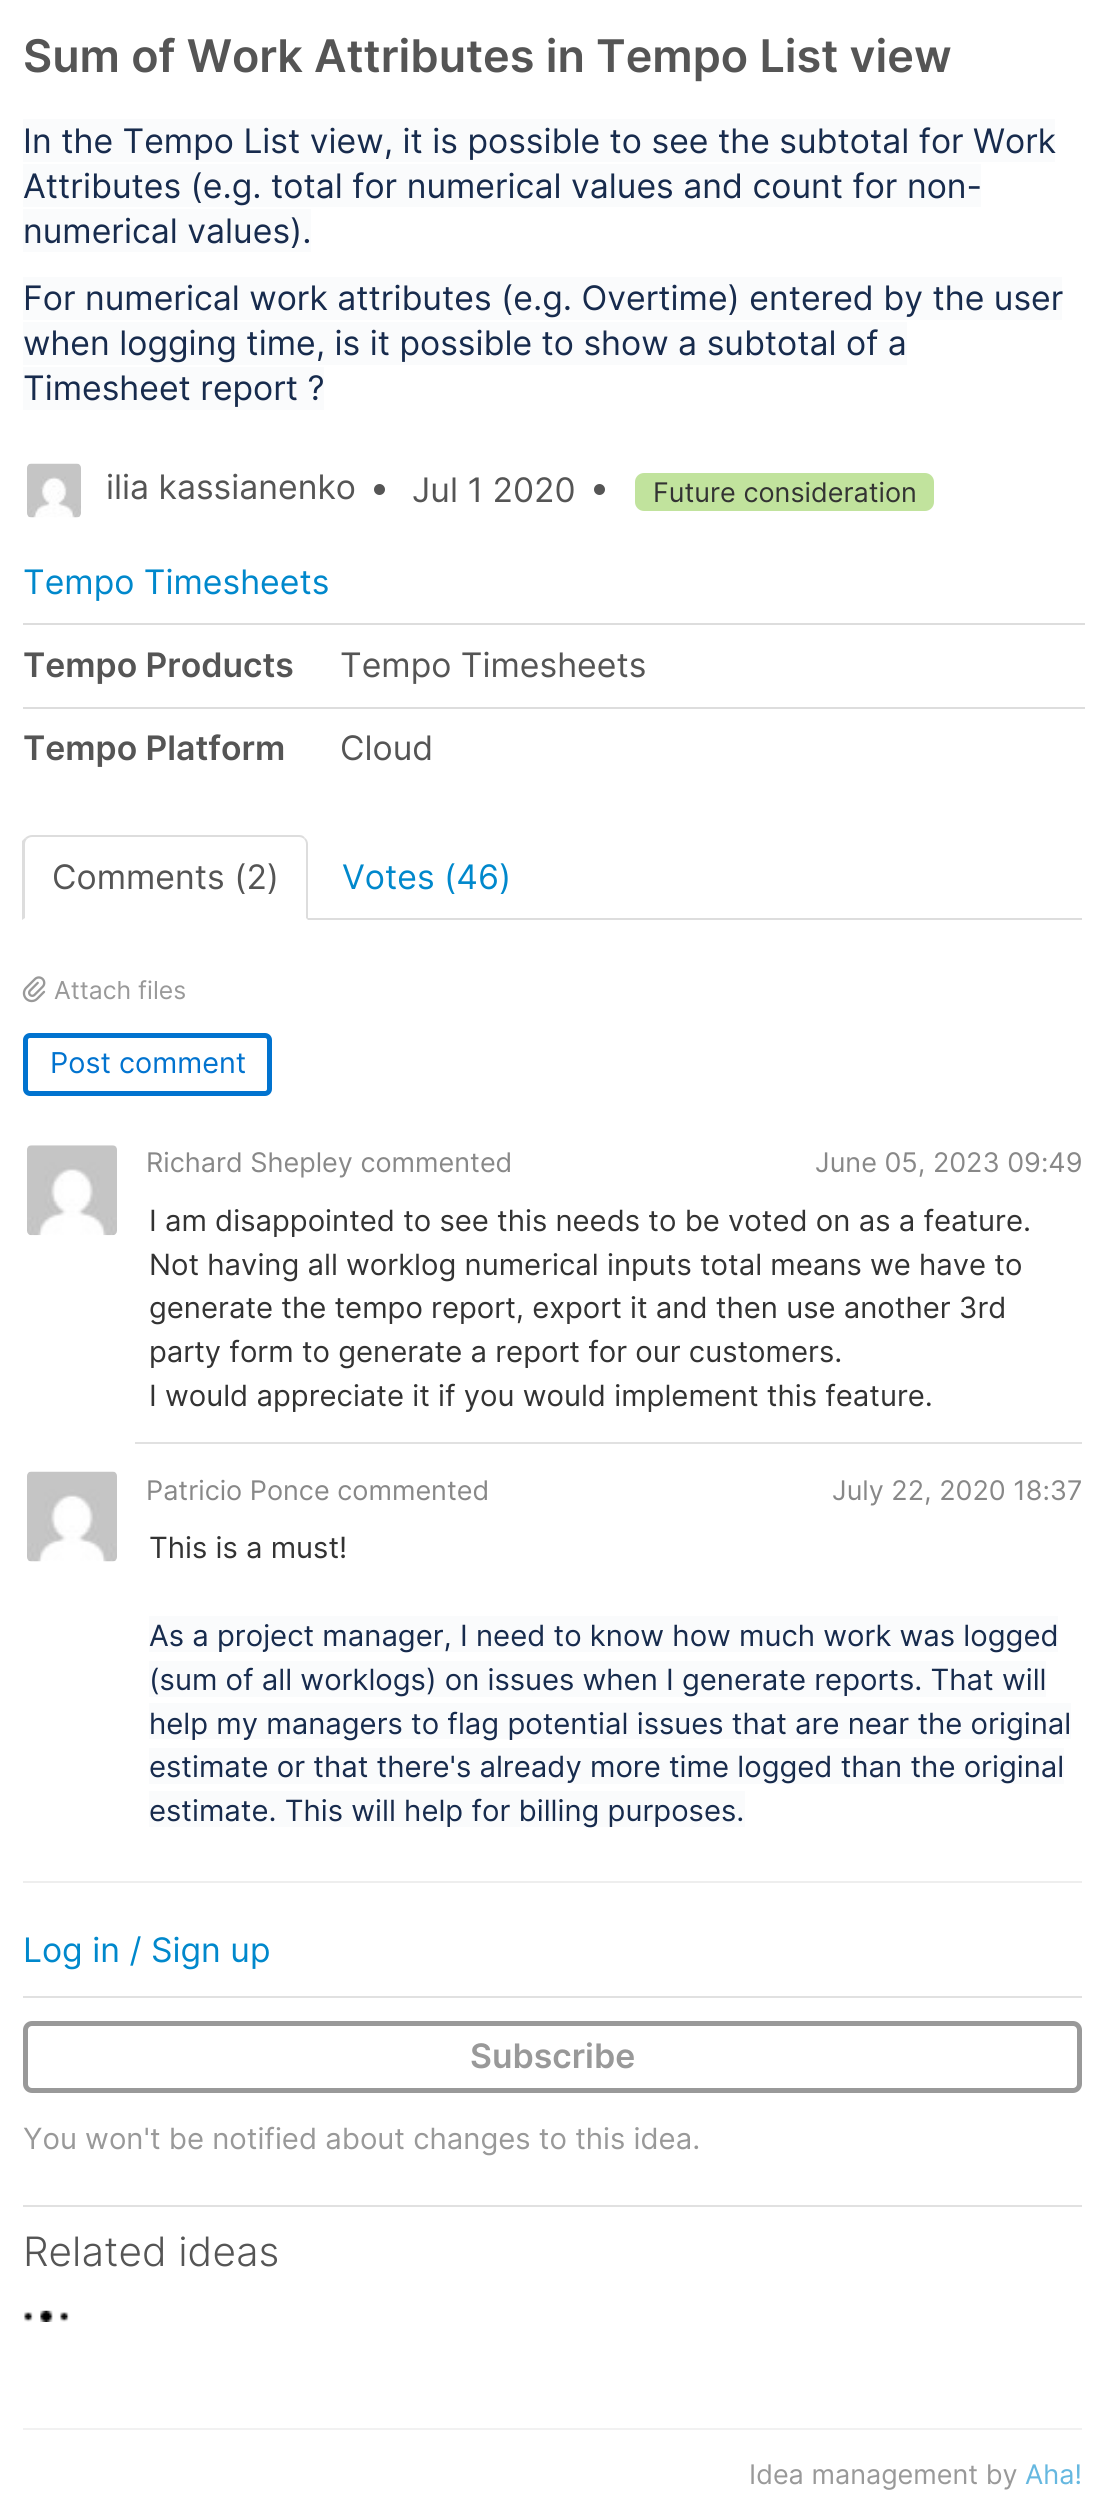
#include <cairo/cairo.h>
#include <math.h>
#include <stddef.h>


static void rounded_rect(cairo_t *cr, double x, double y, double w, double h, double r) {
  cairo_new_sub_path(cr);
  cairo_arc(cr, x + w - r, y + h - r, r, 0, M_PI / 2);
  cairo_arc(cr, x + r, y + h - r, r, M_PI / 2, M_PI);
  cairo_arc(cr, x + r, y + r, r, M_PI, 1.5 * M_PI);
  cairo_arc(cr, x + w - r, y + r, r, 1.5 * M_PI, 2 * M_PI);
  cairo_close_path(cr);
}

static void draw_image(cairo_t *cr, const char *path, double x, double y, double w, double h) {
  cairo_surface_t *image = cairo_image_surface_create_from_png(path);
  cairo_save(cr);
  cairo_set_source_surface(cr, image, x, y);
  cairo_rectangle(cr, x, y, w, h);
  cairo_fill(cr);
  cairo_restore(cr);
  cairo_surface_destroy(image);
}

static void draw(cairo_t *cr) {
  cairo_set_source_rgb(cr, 1, 1, 1);
  cairo_paint(cr);
  cairo_set_source_rgb(cr, 238 / 255.0, 238 / 255.0, 238 / 255.0);
  cairo_rectangle(cr, 23, 1881, 1059, 2);
  cairo_fill(cr);
  cairo_set_source_rgb(cr, 250 / 255.0, 251 / 255.0, 252 / 255.0);
  cairo_rectangle(cr, 23, 119, 1032, 43);
  cairo_fill(cr);
  cairo_rectangle(cr, 23, 164, 958, 43);
  cairo_fill(cr);
  cairo_rectangle(cr, 23, 209, 288, 43);
  cairo_fill(cr);
  cairo_rectangle(cr, 23, 277, 1039, 43);
  cairo_fill(cr);
  cairo_rectangle(cr, 23, 322, 884, 43);
  cairo_fill(cr);
  cairo_rectangle(cr, 23, 367, 301, 43);
  cairo_fill(cr);
  draw_image(cr, "images/1.png", 27, 463, 54, 55);
  cairo_set_source_rgb(cr, 85 / 255.0, 85 / 255.0, 85 / 255.0);
  cairo_arc(cr, 379.5, 489.5, 5.5, 0, 2 * M_PI);
  cairo_fill(cr);
  cairo_arc(cr, 599.5, 489.5, 5.5, 0, 2 * M_PI);
  cairo_fill(cr);
  cairo_set_source_rgb(cr, 193 / 255.0, 227 / 255.0, 157 / 255.0);
  rounded_rect(cr, 635, 473, 299, 38, 9);
  cairo_fill(cr);
  cairo_set_source_rgb(cr, 221 / 255.0, 221 / 255.0, 221 / 255.0);
  cairo_rectangle(cr, 23, 623, 1062, 2);
  cairo_fill(cr);
  cairo_rectangle(cr, 23, 707, 1062, 2);
  cairo_fill(cr);
  cairo_rectangle(cr, 308, 918, 774, 2);
  cairo_fill(cr);
  cairo_new_path(cr);
  cairo_move_to(cr, 32, 835);
  cairo_curve_to(cr, 30, 835, 27, 836, 25, 838);
  cairo_line_to(cr, 27, 839);
  cairo_curve_to(cr, 28, 838, 30, 837, 32, 837);
  cairo_line_to(cr, 299, 837);
  cairo_curve_to(cr, 301, 837, 303, 838, 304, 839);
  cairo_line_to(cr, 305, 838);
  cairo_curve_to(cr, 304, 836, 302, 835, 299, 835);
  cairo_close_path(cr);
  cairo_fill(cr);
  cairo_new_path(cr);
  cairo_move_to(cr, 308, 920);
  cairo_line_to(cr, 308, 844);
  cairo_curve_to(cr, 308, 842, 307, 839, 305, 838);
  cairo_line_to(cr, 304, 839);
  cairo_curve_to(cr, 305, 840, 306, 842, 306, 844);
  cairo_line_to(cr, 306, 918);
  cairo_close_path(cr);
  cairo_fill(cr);
  cairo_new_path(cr);
  cairo_move_to(cr, 22, 841);
  cairo_line_to(cr, 25, 838);
  cairo_line_to(cr, 27, 839);
  cairo_curve_to(cr, 26, 840, 25, 842, 25, 844);
  cairo_line_to(cr, 25, 918);
  cairo_line_to(cr, 22, 920);
  cairo_close_path(cr);
  cairo_fill(cr);
  draw_image(cr, "images/2.png", 22, 976, 24, 27);
  rounded_rect(cr, 25.5, 1035.5, 244, 58, 4.5);
  cairo_set_source_rgb(cr, 1 / 255.0, 115 / 255.0, 207 / 255.0);
  cairo_set_line_width(cr, 5);
  cairo_stroke(cr);
  draw_image(cr, "images/3.png", 27, 1145, 90, 91);
  cairo_set_source_rgb(cr, 225 / 255.0, 225 / 255.0, 225 / 255.0);
  cairo_rectangle(cr, 135, 1442, 947, 2);
  cairo_fill(cr);
  draw_image(cr, "images/4.png", 27, 1471, 90, 91);
  cairo_set_source_rgb(cr, 250 / 255.0, 251 / 255.0, 252 / 255.0);
  cairo_rectangle(cr, 149, 1616, 909, 36);
  cairo_fill(cr);
  cairo_rectangle(cr, 149, 1661, 897, 36);
  cairo_fill(cr);
  cairo_rectangle(cr, 149, 1703, 922, 36);
  cairo_fill(cr);
  cairo_rectangle(cr, 149, 1748, 915, 36);
  cairo_fill(cr);
  cairo_rectangle(cr, 149, 1791, 596, 36);
  cairo_fill(cr);
  cairo_set_source_rgb(cr, 225 / 255.0, 225 / 255.0, 225 / 255.0);
  cairo_rectangle(cr, 23, 1996, 1059, 2);
  cairo_fill(cr);
  cairo_rectangle(cr, 23, 2205, 1059, 2);
  cairo_fill(cr);
  rounded_rect(cr, 25.5, 2023.5, 1054, 67, 6.5);
  cairo_set_source_rgb(cr, 153 / 255.0, 153 / 255.0, 153 / 255.0);
  cairo_stroke(cr);
  draw_image(cr, "images/5.png", 23, 2310, 47, 12);
  cairo_set_source_rgb(cr, 241 / 255.0, 241 / 255.0, 241 / 255.0);
  cairo_rectangle(cr, 23, 2428, 1059, 2);
  cairo_fill(cr);
  cairo_select_font_face(cr, "Inter SemiBold", CAIRO_FONT_SLANT_NORMAL, CAIRO_FONT_WEIGHT_NORMAL);
  cairo_set_font_size(cr, 45);
  cairo_set_source_rgb(cr, 85 / 255.0, 85 / 255.0, 85 / 255.0);
  cairo_move_to(cr, 23, 72);
  cairo_show_text(cr, "Sum of Work Attributes in Tempo List view");
  cairo_select_font_face(cr, "Inter", CAIRO_FONT_SLANT_NORMAL, CAIRO_FONT_WEIGHT_NORMAL);
  cairo_set_font_size(cr, 33.75);
  cairo_set_source_rgb(cr, 23 / 255.0, 43 / 255.0, 77 / 255.0);
  cairo_move_to(cr, 23, 153);
  cairo_show_text(cr, "In the Tempo List view, it is possible to see the subtotal for Work");
  cairo_move_to(cr, 23, 198);
  cairo_show_text(cr, "Attributes (e.g. total for numerical values and count for non-");
  cairo_move_to(cr, 23, 243);
  cairo_show_text(cr, "numerical values).");
  cairo_move_to(cr, 23, 310);
  cairo_show_text(cr, "For numerical work attributes (e.g. Overtime) entered by the user");
  cairo_move_to(cr, 23, 355);
  cairo_show_text(cr, "when logging time, is it possible to show a subtotal of a");
  cairo_move_to(cr, 23, 400);
  cairo_show_text(cr, "Timesheet report ?");
  cairo_set_source_rgb(cr, 85 / 255.0, 85 / 255.0, 85 / 255.0);
  cairo_move_to(cr, 106, 499);
  cairo_show_text(cr, "ilia kassianenko");
  cairo_move_to(cr, 412, 502);
  cairo_show_text(cr, "Jul 1 2020");
  cairo_set_font_size(cr, 27);
  cairo_set_source_rgb(cr, 51 / 255.0, 51 / 255.0, 51 / 255.0);
  cairo_move_to(cr, 653, 502);
  cairo_show_text(cr, "Future consideration");
  cairo_set_font_size(cr, 33.75);
  cairo_set_source_rgb(cr, 0, 136 / 255.0, 204 / 255.0);
  cairo_move_to(cr, 23, 594);
  cairo_show_text(cr, "Tempo Timesheets");
  cairo_select_font_face(cr, "Inter SemiBold", CAIRO_FONT_SLANT_NORMAL, CAIRO_FONT_WEIGHT_NORMAL);
  cairo_set_source_rgb(cr, 85 / 255.0, 85 / 255.0, 85 / 255.0);
  cairo_move_to(cr, 23, 677);
  cairo_show_text(cr, "Tempo Products");
  cairo_select_font_face(cr, "Inter", CAIRO_FONT_SLANT_NORMAL, CAIRO_FONT_WEIGHT_NORMAL);
  cairo_move_to(cr, 340, 677);
  cairo_show_text(cr, "Tempo Timesheets");
  cairo_select_font_face(cr, "Inter SemiBold", CAIRO_FONT_SLANT_NORMAL, CAIRO_FONT_WEIGHT_NORMAL);
  cairo_move_to(cr, 23, 760);
  cairo_show_text(cr, "Tempo Platform");
  cairo_select_font_face(cr, "Inter", CAIRO_FONT_SLANT_NORMAL, CAIRO_FONT_WEIGHT_NORMAL);
  cairo_move_to(cr, 340, 760);
  cairo_show_text(cr, "Cloud");
  cairo_move_to(cr, 52, 889);
  cairo_show_text(cr, "Comments (2)");
  cairo_set_source_rgb(cr, 0, 136 / 255.0, 204 / 255.0);
  cairo_move_to(cr, 342, 889);
  cairo_show_text(cr, "Votes (46)");
  cairo_set_font_size(cr, 24.75);
  cairo_set_source_rgb(cr, 153 / 255.0, 153 / 255.0, 153 / 255.0);
  cairo_move_to(cr, 54, 999);
  cairo_show_text(cr, "Attach files");
  cairo_set_font_size(cr, 28.75);
  cairo_set_source_rgb(cr, 1 / 255.0, 115 / 255.0, 207 / 255.0);
  cairo_move_to(cr, 50, 1073);
  cairo_show_text(cr, "Post comment");
  cairo_set_font_size(cr, 27);
  cairo_set_source_rgb(cr, 136 / 255.0, 136 / 255.0, 136 / 255.0);
  cairo_move_to(cr, 146, 1172);
  cairo_show_text(cr, "Richard Shepley commented");
  cairo_move_to(cr, 815, 1172);
  cairo_show_text(cr, "June 05, 2023 09:49");
  cairo_set_font_size(cr, 29.25);
  cairo_set_source_rgb(cr, 51 / 255.0, 51 / 255.0, 51 / 255.0);
  cairo_move_to(cr, 149, 1231);
  cairo_show_text(cr, "I am disappointed to see this needs to be voted on as a feature.");
  cairo_move_to(cr, 149, 1275);
  cairo_show_text(cr, "Not having all worklog numerical inputs total means we have to");
  cairo_move_to(cr, 149, 1318);
  cairo_show_text(cr, "generate the tempo report, export it and then use another 3rd");
  cairo_move_to(cr, 149, 1362);
  cairo_show_text(cr, "party form to generate a report for our customers.");
  cairo_move_to(cr, 149, 1406);
  cairo_show_text(cr, "I would appreciate it if you would implement this feature.");
  cairo_set_font_size(cr, 27);
  cairo_set_source_rgb(cr, 136 / 255.0, 136 / 255.0, 136 / 255.0);
  cairo_move_to(cr, 146, 1500);
  cairo_show_text(cr, "Patricio Ponce commented");
  cairo_move_to(cr, 832, 1500);
  cairo_show_text(cr, "July 22, 2020 18:37");
  cairo_set_font_size(cr, 29.25);
  cairo_set_source_rgb(cr, 51 / 255.0, 51 / 255.0, 51 / 255.0);
  cairo_move_to(cr, 149, 1558);
  cairo_show_text(cr, "This is a must!");
  cairo_set_source_rgb(cr, 23 / 255.0, 43 / 255.0, 77 / 255.0);
  cairo_move_to(cr, 149, 1646);
  cairo_show_text(cr, "As a project manager, I need to know how much work was logged");
  cairo_move_to(cr, 149, 1690);
  cairo_show_text(cr, "(sum of all worklogs) on issues when I generate reports. That will");
  cairo_move_to(cr, 149, 1734);
  cairo_show_text(cr, "help my managers to flag potential issues that are near the original");
  cairo_move_to(cr, 149, 1777);
  cairo_show_text(cr, "estimate or that there's already more time logged than the original");
  cairo_move_to(cr, 149, 1821);
  cairo_show_text(cr, "estimate. This will help for billing purposes.");
  cairo_set_font_size(cr, 33.75);
  cairo_set_source_rgb(cr, 0, 136 / 255.0, 204 / 255.0);
  cairo_move_to(cr, 23, 1962);
  cairo_show_text(cr, "Log in / Sign up");
  cairo_select_font_face(cr, "Inter SemiBold", CAIRO_FONT_SLANT_NORMAL, CAIRO_FONT_WEIGHT_NORMAL);
  cairo_set_source_rgb(cr, 153 / 255.0, 153 / 255.0, 153 / 255.0);
  cairo_move_to(cr, 470, 2068);
  cairo_show_text(cr, "Subscribe");
  cairo_select_font_face(cr, "Inter", CAIRO_FONT_SLANT_NORMAL, CAIRO_FONT_WEIGHT_NORMAL);
  cairo_set_font_size(cr, 29.25);
  cairo_move_to(cr, 23, 2149);
  cairo_show_text(cr, "You won't be notified about changes to this idea.");
  cairo_select_font_face(cr, "Inter Light", CAIRO_FONT_SLANT_NORMAL, CAIRO_FONT_WEIGHT_NORMAL);
  cairo_set_font_size(cr, 40.5);
  cairo_set_source_rgb(cr, 85 / 255.0, 85 / 255.0, 85 / 255.0);
  cairo_move_to(cr, 23, 2266);
  cairo_show_text(cr, "Related ideas");
  cairo_select_font_face(cr, "Inter", CAIRO_FONT_SLANT_NORMAL, CAIRO_FONT_WEIGHT_NORMAL);
  cairo_set_font_size(cr, 27);
  cairo_set_source_rgb(cr, 153 / 255.0, 153 / 255.0, 153 / 255.0);
  cairo_move_to(cr, 749, 2484);
  cairo_show_text(cr, "Idea management by");
  cairo_set_source_rgb(cr, 102 / 255.0, 184 / 255.0, 224 / 255.0);
  cairo_move_to(cr, 1025, 2484);
  cairo_show_text(cr, "Aha!");
}

int main(void) {
  cairo_surface_t *surface = cairo_image_surface_create(CAIRO_FORMAT_RGB24, 1104, 2516);
  cairo_t *cr = cairo_create(surface);
  cairo_font_options_t *options = cairo_font_options_create();
  cairo_font_options_set_hint_metrics(options, CAIRO_HINT_METRICS_OFF);
  cairo_font_options_set_hint_style(options, CAIRO_HINT_STYLE_NONE);
  cairo_set_font_options(cr, options);
  cairo_set_miter_limit(cr, 4);
  draw(cr);
  cairo_surface_write_to_png(surface, "out.png");
  cairo_font_options_destroy(options);
  cairo_destroy(cr);
  cairo_surface_destroy(surface);
  return 0;
}
